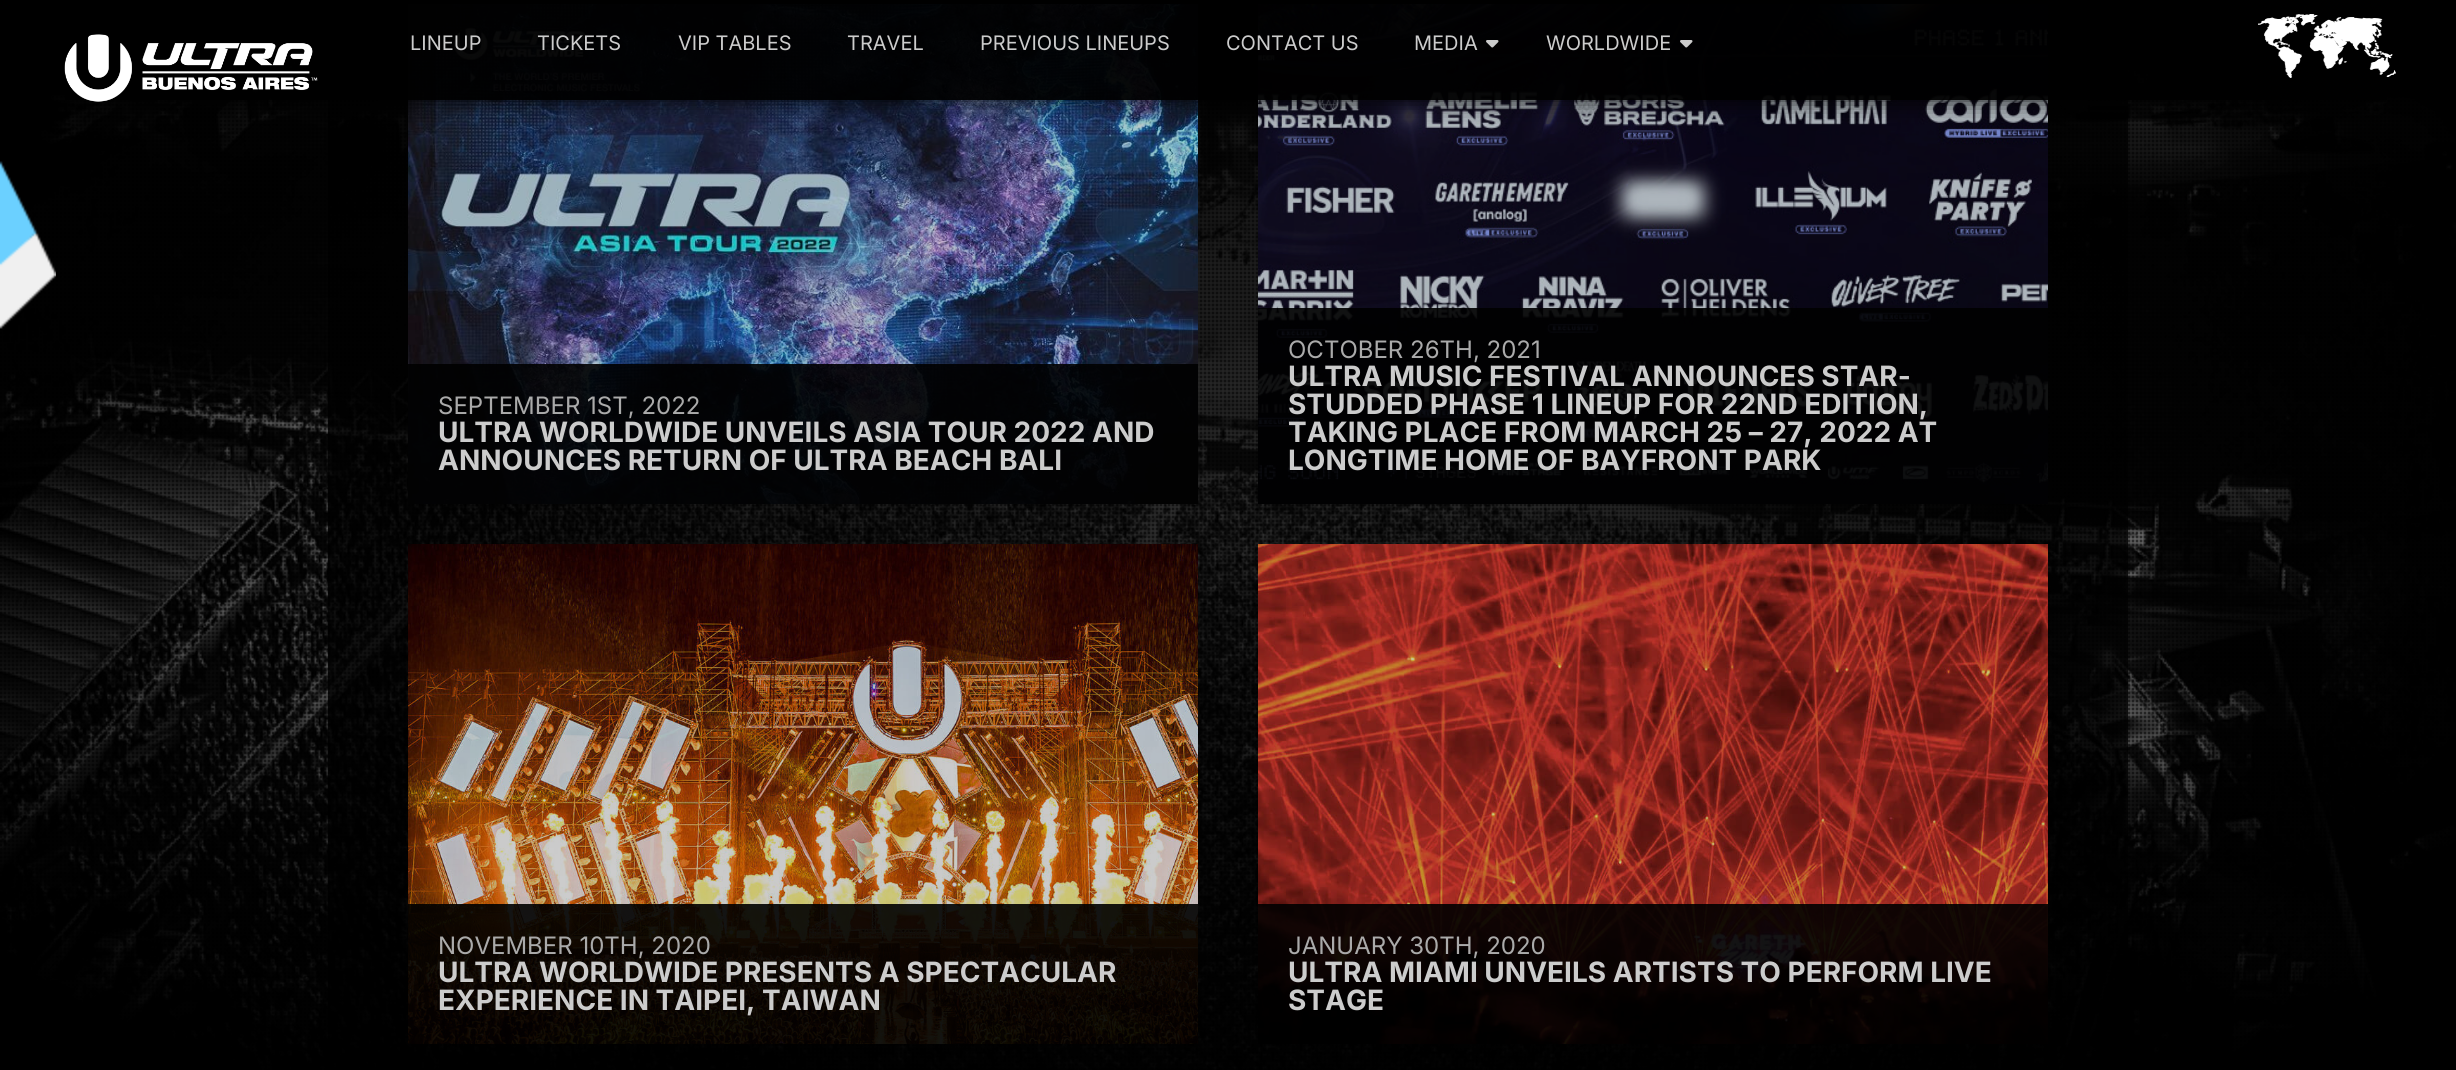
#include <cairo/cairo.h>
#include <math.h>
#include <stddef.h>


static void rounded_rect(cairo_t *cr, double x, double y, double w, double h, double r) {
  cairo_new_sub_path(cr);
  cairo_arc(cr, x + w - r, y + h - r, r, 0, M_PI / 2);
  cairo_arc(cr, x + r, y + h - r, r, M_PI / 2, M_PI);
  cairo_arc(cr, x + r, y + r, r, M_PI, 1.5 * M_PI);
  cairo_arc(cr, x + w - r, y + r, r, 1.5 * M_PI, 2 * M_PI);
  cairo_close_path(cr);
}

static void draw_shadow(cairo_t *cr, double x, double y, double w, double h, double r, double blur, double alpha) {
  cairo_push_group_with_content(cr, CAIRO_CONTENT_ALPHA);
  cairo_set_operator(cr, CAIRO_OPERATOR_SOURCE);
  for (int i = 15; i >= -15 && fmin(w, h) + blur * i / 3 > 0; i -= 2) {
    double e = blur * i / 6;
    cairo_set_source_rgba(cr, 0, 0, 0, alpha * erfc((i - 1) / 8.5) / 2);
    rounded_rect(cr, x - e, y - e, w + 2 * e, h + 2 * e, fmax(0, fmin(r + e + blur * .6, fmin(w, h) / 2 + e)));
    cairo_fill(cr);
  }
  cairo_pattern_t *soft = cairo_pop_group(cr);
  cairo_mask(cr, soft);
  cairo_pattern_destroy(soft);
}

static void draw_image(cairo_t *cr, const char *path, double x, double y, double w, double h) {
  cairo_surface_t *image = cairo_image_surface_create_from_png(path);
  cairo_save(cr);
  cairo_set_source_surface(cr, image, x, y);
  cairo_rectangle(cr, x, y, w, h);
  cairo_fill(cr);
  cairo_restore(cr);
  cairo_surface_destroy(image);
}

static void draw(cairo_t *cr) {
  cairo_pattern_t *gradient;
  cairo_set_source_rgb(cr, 0, 0, 0);
  cairo_paint(cr);
  draw_image(cr, "images/1.png", 0, 0, 2456, 1070);
  gradient = cairo_pattern_create_radial(0, 0, 0, 0, 0, 1);
  cairo_pattern_set_matrix(gradient, &(cairo_matrix_t){1.0 / 1737, 0, 0, 1.0 / 757, -1.0 * 1228 / 1737, -1.0 * 535 / 757});
  cairo_pattern_add_color_stop_rgba(gradient, 0, 0, 0, 0, 0);
  cairo_pattern_add_color_stop_rgba(gradient, 0.91, 0, 0, 0, 1);
  cairo_set_source(cr, gradient);
  cairo_pattern_destroy(gradient);
  cairo_rectangle(cr, 0, 0, 2456, 1070);
  cairo_fill(cr);
  draw_image(cr, "images/2.png", 0, 0, 2450, 1070);
  draw_image(cr, "images/3.png", 0, 161, 56, 168);
  cairo_set_source_rgba(cr, 0, 0, 0, 0.8);
  cairo_rectangle(cr, 328, 0, 1800, 1070);
  cairo_fill(cr);
  draw_image(cr, "images/8.png", 408, 4, 790, 500);
  draw_image(cr, "images/9.png", 1258, 4, 790, 500);
  cairo_save(cr);
  cairo_rectangle(cr, 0, 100, 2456, 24);
  cairo_clip(cr);
  cairo_set_source_rgb(cr, 0, 0, 0);
  draw_shadow(cr, 0, 0, 2456, 100, 0, 12, 0.95);
  cairo_restore(cr);
  cairo_set_source_rgba(cr, 0, 0, 0, 0.95);
  cairo_rectangle(cr, 65, 0, 2322, 100);
  cairo_fill(cr);
  draw_image(cr, "images/4.png", 64, 34, 254, 68);
  draw_image(cr, "images/5.png", 1486, 40, 13, 8);
  draw_image(cr, "images/6.png", 1680, 40, 13, 8);
  draw_image(cr, "images/7.png", 2258, 14, 138, 64);
  cairo_set_source_rgba(cr, 0, 0, 0, 0.9);
  cairo_rectangle(cr, 408, 364, 790, 140);
  cairo_fill(cr);
  cairo_rectangle(cr, 1258, 308, 790, 196);
  cairo_fill(cr);
  draw_image(cr, "images/10.png", 408, 544, 790, 500);
  cairo_rectangle(cr, 408, 904, 790, 140);
  cairo_fill(cr);
  draw_image(cr, "images/11.png", 1258, 544, 790, 500);
  cairo_rectangle(cr, 1258, 904, 790, 140);
  cairo_fill(cr);
  cairo_select_font_face(cr, "Inter", CAIRO_FONT_SLANT_NORMAL, CAIRO_FONT_WEIGHT_NORMAL);
  cairo_set_font_size(cr, 20);
  cairo_set_source_rgb(cr, 204 / 255.0, 204 / 255.0, 204 / 255.0);
  cairo_move_to(cr, 410, 50);
  cairo_show_text(cr, "LINEUP");
  cairo_move_to(cr, 537, 50);
  cairo_show_text(cr, "TICKETS");
  cairo_move_to(cr, 678, 50);
  cairo_show_text(cr, "VIP TABLES");
  cairo_move_to(cr, 847, 50);
  cairo_show_text(cr, "TRAVEL");
  cairo_move_to(cr, 980, 50);
  cairo_show_text(cr, "PREVIOUS LINEUPS");
  cairo_move_to(cr, 1226, 50);
  cairo_show_text(cr, "CONTACT US");
  cairo_move_to(cr, 1414, 50);
  cairo_show_text(cr, "MEDIA");
  cairo_move_to(cr, 1546, 50);
  cairo_show_text(cr, "WORLDWIDE");
  cairo_set_font_size(cr, 24);
  cairo_set_source_rgb(cr, 170 / 255.0, 170 / 255.0, 170 / 255.0);
  cairo_move_to(cr, 438, 414);
  cairo_show_text(cr, "SEPTEMBER 1ST, 2022");
  cairo_select_font_face(cr, "Inter", CAIRO_FONT_SLANT_NORMAL, CAIRO_FONT_WEIGHT_BOLD);
  cairo_set_font_size(cr, 28);
  cairo_set_source_rgb(cr, 204 / 255.0, 204 / 255.0, 204 / 255.0);
  cairo_move_to(cr, 438, 442);
  cairo_show_text(cr, "ULTRA WORLDWIDE UNVEILS ASIA TOUR 2022 AND");
  cairo_move_to(cr, 438, 470);
  cairo_show_text(cr, "ANNOUNCES RETURN OF ULTRA BEACH BALI");
  cairo_select_font_face(cr, "Inter", CAIRO_FONT_SLANT_NORMAL, CAIRO_FONT_WEIGHT_NORMAL);
  cairo_set_font_size(cr, 24);
  cairo_set_source_rgb(cr, 170 / 255.0, 170 / 255.0, 170 / 255.0);
  cairo_move_to(cr, 1288, 358);
  cairo_show_text(cr, "OCTOBER 26TH, 2021");
  cairo_select_font_face(cr, "Inter", CAIRO_FONT_SLANT_NORMAL, CAIRO_FONT_WEIGHT_BOLD);
  cairo_set_font_size(cr, 28);
  cairo_set_source_rgb(cr, 204 / 255.0, 204 / 255.0, 204 / 255.0);
  cairo_move_to(cr, 1288, 386);
  cairo_show_text(cr, "ULTRA MUSIC FESTIVAL ANNOUNCES STAR-");
  cairo_move_to(cr, 1288, 414);
  cairo_show_text(cr, "STUDDED PHASE 1 LINEUP FOR 22ND EDITION,");
  cairo_move_to(cr, 1288, 442);
  cairo_show_text(cr, "TAKING PLACE FROM MARCH 25 – 27, 2022 AT");
  cairo_move_to(cr, 1288, 470);
  cairo_show_text(cr, "LONGTIME HOME OF BAYFRONT PARK");
  cairo_select_font_face(cr, "Inter", CAIRO_FONT_SLANT_NORMAL, CAIRO_FONT_WEIGHT_NORMAL);
  cairo_set_font_size(cr, 24);
  cairo_set_source_rgb(cr, 170 / 255.0, 170 / 255.0, 170 / 255.0);
  cairo_move_to(cr, 438, 954);
  cairo_show_text(cr, "NOVEMBER 10TH, 2020");
  cairo_select_font_face(cr, "Inter", CAIRO_FONT_SLANT_NORMAL, CAIRO_FONT_WEIGHT_BOLD);
  cairo_set_font_size(cr, 28);
  cairo_set_source_rgb(cr, 204 / 255.0, 204 / 255.0, 204 / 255.0);
  cairo_move_to(cr, 438, 982);
  cairo_show_text(cr, "ULTRA WORLDWIDE PRESENTS A SPECTACULAR");
  cairo_move_to(cr, 438, 1010);
  cairo_show_text(cr, "EXPERIENCE IN TAIPEI, TAIWAN");
  cairo_select_font_face(cr, "Inter", CAIRO_FONT_SLANT_NORMAL, CAIRO_FONT_WEIGHT_NORMAL);
  cairo_set_font_size(cr, 24);
  cairo_set_source_rgb(cr, 170 / 255.0, 170 / 255.0, 170 / 255.0);
  cairo_move_to(cr, 1288, 954);
  cairo_show_text(cr, "JANUARY 30TH, 2020");
  cairo_select_font_face(cr, "Inter", CAIRO_FONT_SLANT_NORMAL, CAIRO_FONT_WEIGHT_BOLD);
  cairo_set_font_size(cr, 28);
  cairo_set_source_rgb(cr, 204 / 255.0, 204 / 255.0, 204 / 255.0);
  cairo_move_to(cr, 1288, 982);
  cairo_show_text(cr, "ULTRA MIAMI UNVEILS ARTISTS TO PERFORM LIVE");
  cairo_move_to(cr, 1288, 1010);
  cairo_show_text(cr, "STAGE");
}

int main(void) {
  cairo_surface_t *surface = cairo_image_surface_create(CAIRO_FORMAT_RGB24, 2456, 1070);
  cairo_t *cr = cairo_create(surface);
  cairo_font_options_t *options = cairo_font_options_create();
  cairo_font_options_set_hint_metrics(options, CAIRO_HINT_METRICS_OFF);
  cairo_font_options_set_hint_style(options, CAIRO_HINT_STYLE_NONE);
  cairo_set_font_options(cr, options);
  cairo_set_miter_limit(cr, 4);
  draw(cr);
  cairo_surface_write_to_png(surface, "out.png");
  cairo_font_options_destroy(options);
  cairo_destroy(cr);
  cairo_surface_destroy(surface);
  return 0;
}
